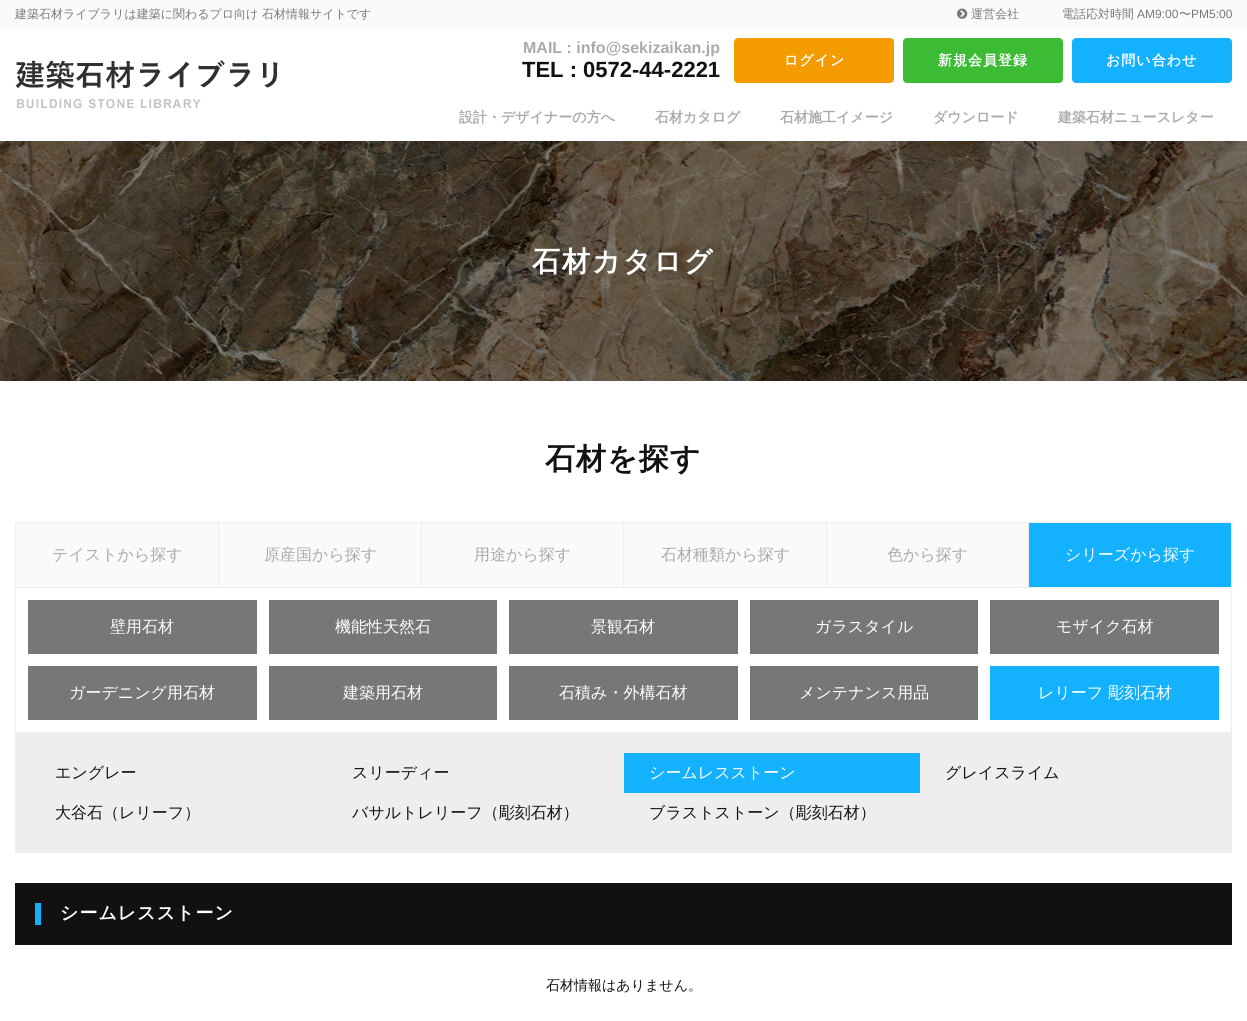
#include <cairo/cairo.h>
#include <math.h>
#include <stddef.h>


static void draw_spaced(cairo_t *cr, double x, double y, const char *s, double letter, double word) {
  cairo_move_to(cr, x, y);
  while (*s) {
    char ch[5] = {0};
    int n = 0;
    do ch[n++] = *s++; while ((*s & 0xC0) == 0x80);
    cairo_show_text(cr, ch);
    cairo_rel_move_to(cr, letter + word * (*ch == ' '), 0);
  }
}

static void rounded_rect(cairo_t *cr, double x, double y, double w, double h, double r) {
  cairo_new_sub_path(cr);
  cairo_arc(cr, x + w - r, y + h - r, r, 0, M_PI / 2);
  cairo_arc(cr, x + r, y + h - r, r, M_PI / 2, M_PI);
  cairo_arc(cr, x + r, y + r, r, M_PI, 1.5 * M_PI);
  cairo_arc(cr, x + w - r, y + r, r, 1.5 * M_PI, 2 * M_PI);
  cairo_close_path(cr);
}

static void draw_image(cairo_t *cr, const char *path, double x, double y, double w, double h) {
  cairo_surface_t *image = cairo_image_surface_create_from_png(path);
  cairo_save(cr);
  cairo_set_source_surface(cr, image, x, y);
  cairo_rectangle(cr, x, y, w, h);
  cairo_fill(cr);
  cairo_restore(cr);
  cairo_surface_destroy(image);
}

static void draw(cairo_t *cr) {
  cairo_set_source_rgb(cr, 1, 1, 1);
  cairo_paint(cr);
  cairo_set_source_rgb(cr, 250 / 255.0, 250 / 255.0, 250 / 255.0);
  cairo_rectangle(cr, 0, 0, 1247, 28);
  cairo_fill(cr);
  draw_image(cr, "images/1.png", 957, 8, 11, 11);
  draw_image(cr, "images/2.png", 15, 60, 263, 49);
  cairo_set_source_rgb(cr, 244 / 255.0, 155 / 255.0, 0);
  rounded_rect(cr, 735, 39, 158, 43, 3);
  cairo_fill_preserve(cr);
  cairo_stroke(cr);
  cairo_set_source_rgb(cr, 59 / 255.0, 188 / 255.0, 52 / 255.0);
  rounded_rect(cr, 904, 39, 158, 43, 3);
  cairo_fill_preserve(cr);
  cairo_stroke(cr);
  cairo_set_source_rgb(cr, 20 / 255.0, 177 / 255.0, 1);
  rounded_rect(cr, 1073, 39, 158, 43, 3);
  cairo_fill_preserve(cr);
  cairo_stroke(cr);
  draw_image(cr, "images/3.png", 0, 141, 1247, 240);
  cairo_rectangle(cr, 15.5, 522.5, 1216, 65);
  cairo_set_source_rgb(cr, 238 / 255.0, 238 / 255.0, 238 / 255.0);
  cairo_set_line_width(cr, 1);
  cairo_stroke(cr);
  cairo_set_source_rgb(cr, 250 / 255.0, 250 / 255.0, 250 / 255.0);
  cairo_rectangle(cr, 16, 523, 202, 64);
  cairo_fill(cr);
  cairo_rectangle(cr, 219, 523, 202, 64);
  cairo_fill(cr);
  cairo_set_source_rgb(cr, 238 / 255.0, 238 / 255.0, 238 / 255.0);
  cairo_rectangle(cr, 218, 523, 1, 64);
  cairo_fill(cr);
  cairo_set_source_rgb(cr, 250 / 255.0, 250 / 255.0, 250 / 255.0);
  cairo_rectangle(cr, 422, 523, 201, 64);
  cairo_fill(cr);
  cairo_set_source_rgb(cr, 238 / 255.0, 238 / 255.0, 238 / 255.0);
  cairo_rectangle(cr, 421, 523, 1, 64);
  cairo_fill(cr);
  cairo_set_source_rgb(cr, 250 / 255.0, 250 / 255.0, 250 / 255.0);
  cairo_rectangle(cr, 624, 523, 202, 64);
  cairo_fill(cr);
  cairo_set_source_rgb(cr, 238 / 255.0, 238 / 255.0, 238 / 255.0);
  cairo_rectangle(cr, 623, 523, 1, 64);
  cairo_fill(cr);
  cairo_set_source_rgb(cr, 250 / 255.0, 250 / 255.0, 250 / 255.0);
  cairo_rectangle(cr, 827, 523, 201, 64);
  cairo_fill(cr);
  cairo_set_source_rgb(cr, 238 / 255.0, 238 / 255.0, 238 / 255.0);
  cairo_rectangle(cr, 826, 523, 1, 64);
  cairo_fill(cr);
  cairo_rectangle(cr, 1028, 523, 1, 64);
  cairo_fill(cr);
  cairo_set_source_rgb(cr, 20 / 255.0, 177 / 255.0, 1);
  cairo_rectangle(cr, 1029, 523, 202, 64);
  cairo_fill(cr);
  cairo_set_source_rgb(cr, 238 / 255.0, 238 / 255.0, 238 / 255.0);
  cairo_rectangle(cr, 1231, 588, 1, 145);
  cairo_fill(cr);
  cairo_rectangle(cr, 15, 732, 1217, 121);
  cairo_fill(cr);
  cairo_rectangle(cr, 15, 588, 1, 145);
  cairo_fill(cr);
  cairo_set_source_rgb(cr, 119 / 255.0, 119 / 255.0, 119 / 255.0);
  cairo_rectangle(cr, 28, 600, 229, 54);
  cairo_fill(cr);
  cairo_rectangle(cr, 269, 600, 228, 54);
  cairo_fill(cr);
  cairo_rectangle(cr, 509, 600, 229, 54);
  cairo_fill(cr);
  cairo_rectangle(cr, 750, 600, 228, 54);
  cairo_fill(cr);
  cairo_rectangle(cr, 990, 600, 229, 54);
  cairo_fill(cr);
  cairo_rectangle(cr, 28, 666, 229, 54);
  cairo_fill(cr);
  cairo_rectangle(cr, 269, 666, 228, 54);
  cairo_fill(cr);
  cairo_rectangle(cr, 509, 666, 229, 54);
  cairo_fill(cr);
  cairo_rectangle(cr, 750, 666, 228, 54);
  cairo_fill(cr);
  cairo_set_source_rgb(cr, 20 / 255.0, 177 / 255.0, 1);
  cairo_rectangle(cr, 990, 666, 229, 54);
  cairo_fill(cr);
  cairo_rectangle(cr, 624, 753, 296, 40);
  cairo_fill(cr);
  cairo_set_source_rgb(cr, 17 / 255.0, 17 / 255.0, 17 / 255.0);
  cairo_rectangle(cr, 15, 883, 1217, 62);
  cairo_fill(cr);
  cairo_set_source_rgb(cr, 20 / 255.0, 177 / 255.0, 1);
  cairo_rectangle(cr, 35, 903, 6, 22);
  cairo_fill(cr);
  cairo_select_font_face(cr, "WenQuanYi Zen Hei Medium", CAIRO_FONT_SLANT_NORMAL, CAIRO_FONT_WEIGHT_NORMAL);
  cairo_set_font_size(cr, 12);
  cairo_set_source_rgb(cr, 119 / 255.0, 119 / 255.0, 119 / 255.0);
  cairo_move_to(cr, 15, 18);
  cairo_show_text(cr, "建築石材ライブラリは建築に関わるプロ向け 石材情報サイトです");
  cairo_move_to(cr, 971, 18);
  cairo_show_text(cr, "運営会社");
  cairo_move_to(cr, 1062, 18);
  cairo_show_text(cr, "電話応対時間");
  cairo_select_font_face(cr, "Liberation Sans", CAIRO_FONT_SLANT_NORMAL, CAIRO_FONT_WEIGHT_NORMAL);
  cairo_move_to(cr, 1137, 18);
  cairo_show_text(cr, "AM9:00");
  cairo_select_font_face(cr, "WenQuanYi Zen Hei Medium", CAIRO_FONT_SLANT_NORMAL, CAIRO_FONT_WEIGHT_NORMAL);
  cairo_move_to(cr, 1179, 18);
  cairo_show_text(cr, "〜");
  cairo_select_font_face(cr, "Liberation Sans", CAIRO_FONT_SLANT_NORMAL, CAIRO_FONT_WEIGHT_NORMAL);
  cairo_move_to(cr, 1191, 18);
  cairo_show_text(cr, "PM5:00");
  cairo_select_font_face(cr, "Liberation Sans", CAIRO_FONT_SLANT_NORMAL, CAIRO_FONT_WEIGHT_BOLD);
  cairo_set_font_size(cr, 16);
  cairo_set_source_rgb(cr, 170 / 255.0, 170 / 255.0, 170 / 255.0);
  cairo_move_to(cr, 523, 53);
  cairo_show_text(cr, "MAIL : info@sekizaikan.jp");
  cairo_set_font_size(cr, 22);
  cairo_set_source_rgb(cr, 17 / 255.0, 17 / 255.0, 17 / 255.0);
  cairo_move_to(cr, 522, 77);
  cairo_show_text(cr, "TEL : 0572-44-2221");
  cairo_select_font_face(cr, "WenQuanYi Zen Hei", CAIRO_FONT_SLANT_NORMAL, CAIRO_FONT_WEIGHT_BOLD);
  cairo_set_font_size(cr, 14);
  cairo_set_source_rgb(cr, 1, 1, 1);
  draw_spaced(cr, 784, 65, "ログイン", 1, 0);
  draw_spaced(cr, 938, 65, "新規会員登録", 1, 0);
  draw_spaced(cr, 1106, 65, "お問い合わせ", 1, 0);
  cairo_set_source_rgb(cr, 170 / 255.0, 170 / 255.0, 170 / 255.0);
  cairo_move_to(cr, 459, 122);
  cairo_show_text(cr, "設計・デザイナーの方へ");
  cairo_move_to(cr, 655, 122);
  cairo_show_text(cr, "石材カタログ");
  cairo_move_to(cr, 780, 122);
  cairo_show_text(cr, "石材施工イメージ");
  cairo_move_to(cr, 933, 122);
  cairo_show_text(cr, "ダウンロード");
  cairo_move_to(cr, 1058, 122);
  cairo_show_text(cr, "建築石材ニュースレター");
  cairo_set_font_size(cr, 28);
  cairo_set_source_rgb(cr, 1, 1, 1);
  draw_spaced(cr, 532, 271, "石材カタログ", 2, 0);
  cairo_set_font_size(cr, 30);
  cairo_set_source_rgb(cr, 17 / 255.0, 17 / 255.0, 17 / 255.0);
  draw_spaced(cr, 545, 469, "石材を探す", 1, 0);
  cairo_select_font_face(cr, "WenQuanYi Zen Hei Medium", CAIRO_FONT_SLANT_NORMAL, CAIRO_FONT_WEIGHT_NORMAL);
  cairo_set_font_size(cr, 16);
  cairo_set_source_rgb(cr, 170 / 255.0, 170 / 255.0, 170 / 255.0);
  cairo_move_to(cr, 52, 560);
  cairo_show_text(cr, "テイストから探す");
  cairo_move_to(cr, 264, 560);
  cairo_show_text(cr, "原産国から探す");
  cairo_move_to(cr, 474, 560);
  cairo_show_text(cr, "用途から探す");
  cairo_move_to(cr, 661, 560);
  cairo_show_text(cr, "石材種類から探す");
  cairo_move_to(cr, 887, 560);
  cairo_show_text(cr, "色から探す");
  cairo_set_source_rgb(cr, 1, 1, 1);
  cairo_move_to(cr, 1065, 560);
  cairo_show_text(cr, "シリーズから探す");
  cairo_move_to(cr, 110, 632);
  cairo_show_text(cr, "壁用石材");
  cairo_move_to(cr, 335, 632);
  cairo_show_text(cr, "機能性天然石");
  cairo_move_to(cr, 591, 632);
  cairo_show_text(cr, "景観石材");
  cairo_move_to(cr, 815, 632);
  cairo_show_text(cr, "ガラスタイル");
  cairo_move_to(cr, 1056, 632);
  cairo_show_text(cr, "モザイク石材");
  cairo_move_to(cr, 69, 698);
  cairo_show_text(cr, "ガーデニング用石材");
  cairo_move_to(cr, 343, 698);
  cairo_show_text(cr, "建築用石材");
  cairo_move_to(cr, 559, 698);
  cairo_show_text(cr, "石積み・外構石材");
  cairo_move_to(cr, 799, 698);
  cairo_show_text(cr, "メンテナンス用品");
  cairo_move_to(cr, 1038, 698);
  cairo_show_text(cr, "レリーフ 彫刻石材");
  cairo_set_source_rgb(cr, 17 / 255.0, 17 / 255.0, 17 / 255.0);
  cairo_move_to(cr, 55, 778);
  cairo_show_text(cr, "エングレー");
  cairo_move_to(cr, 352, 778);
  cairo_show_text(cr, "スリーディー");
  cairo_set_source_rgb(cr, 1, 1, 1);
  cairo_move_to(cr, 649, 778);
  cairo_show_text(cr, "シームレスストーン");
  cairo_set_source_rgb(cr, 17 / 255.0, 17 / 255.0, 17 / 255.0);
  cairo_move_to(cr, 945, 778);
  cairo_show_text(cr, "グレイスライム");
  cairo_move_to(cr, 55, 818);
  cairo_show_text(cr, "大谷石（レリーフ）");
  cairo_move_to(cr, 352, 818);
  cairo_show_text(cr, "バサルトレリーフ（彫刻石材）");
  cairo_move_to(cr, 649, 818);
  cairo_show_text(cr, "ブラストストーン（彫刻石材）");
  cairo_select_font_face(cr, "WenQuanYi Zen Hei", CAIRO_FONT_SLANT_NORMAL, CAIRO_FONT_WEIGHT_BOLD);
  cairo_set_font_size(cr, 18);
  cairo_set_source_rgb(cr, 1, 1, 1);
  draw_spaced(cr, 60, 919, "シームレスストーン", 1, 0);
  cairo_select_font_face(cr, "WenQuanYi Zen Hei Medium", CAIRO_FONT_SLANT_NORMAL, CAIRO_FONT_WEIGHT_NORMAL);
  cairo_set_font_size(cr, 14);
  cairo_set_source_rgb(cr, 17 / 255.0, 17 / 255.0, 17 / 255.0);
  cairo_move_to(cr, 546, 990);
  cairo_show_text(cr, "石材情報はありません。");
}

int main(void) {
  cairo_surface_t *surface = cairo_image_surface_create(CAIRO_FORMAT_RGB24, 1247, 1021);
  cairo_t *cr = cairo_create(surface);
  cairo_font_options_t *options = cairo_font_options_create();
  cairo_font_options_set_hint_metrics(options, CAIRO_HINT_METRICS_OFF);
  cairo_font_options_set_hint_style(options, CAIRO_HINT_STYLE_NONE);
  cairo_set_font_options(cr, options);
  cairo_set_miter_limit(cr, 4);
  draw(cr);
  cairo_surface_write_to_png(surface, "out.png");
  cairo_font_options_destroy(options);
  cairo_destroy(cr);
  cairo_surface_destroy(surface);
  return 0;
}
